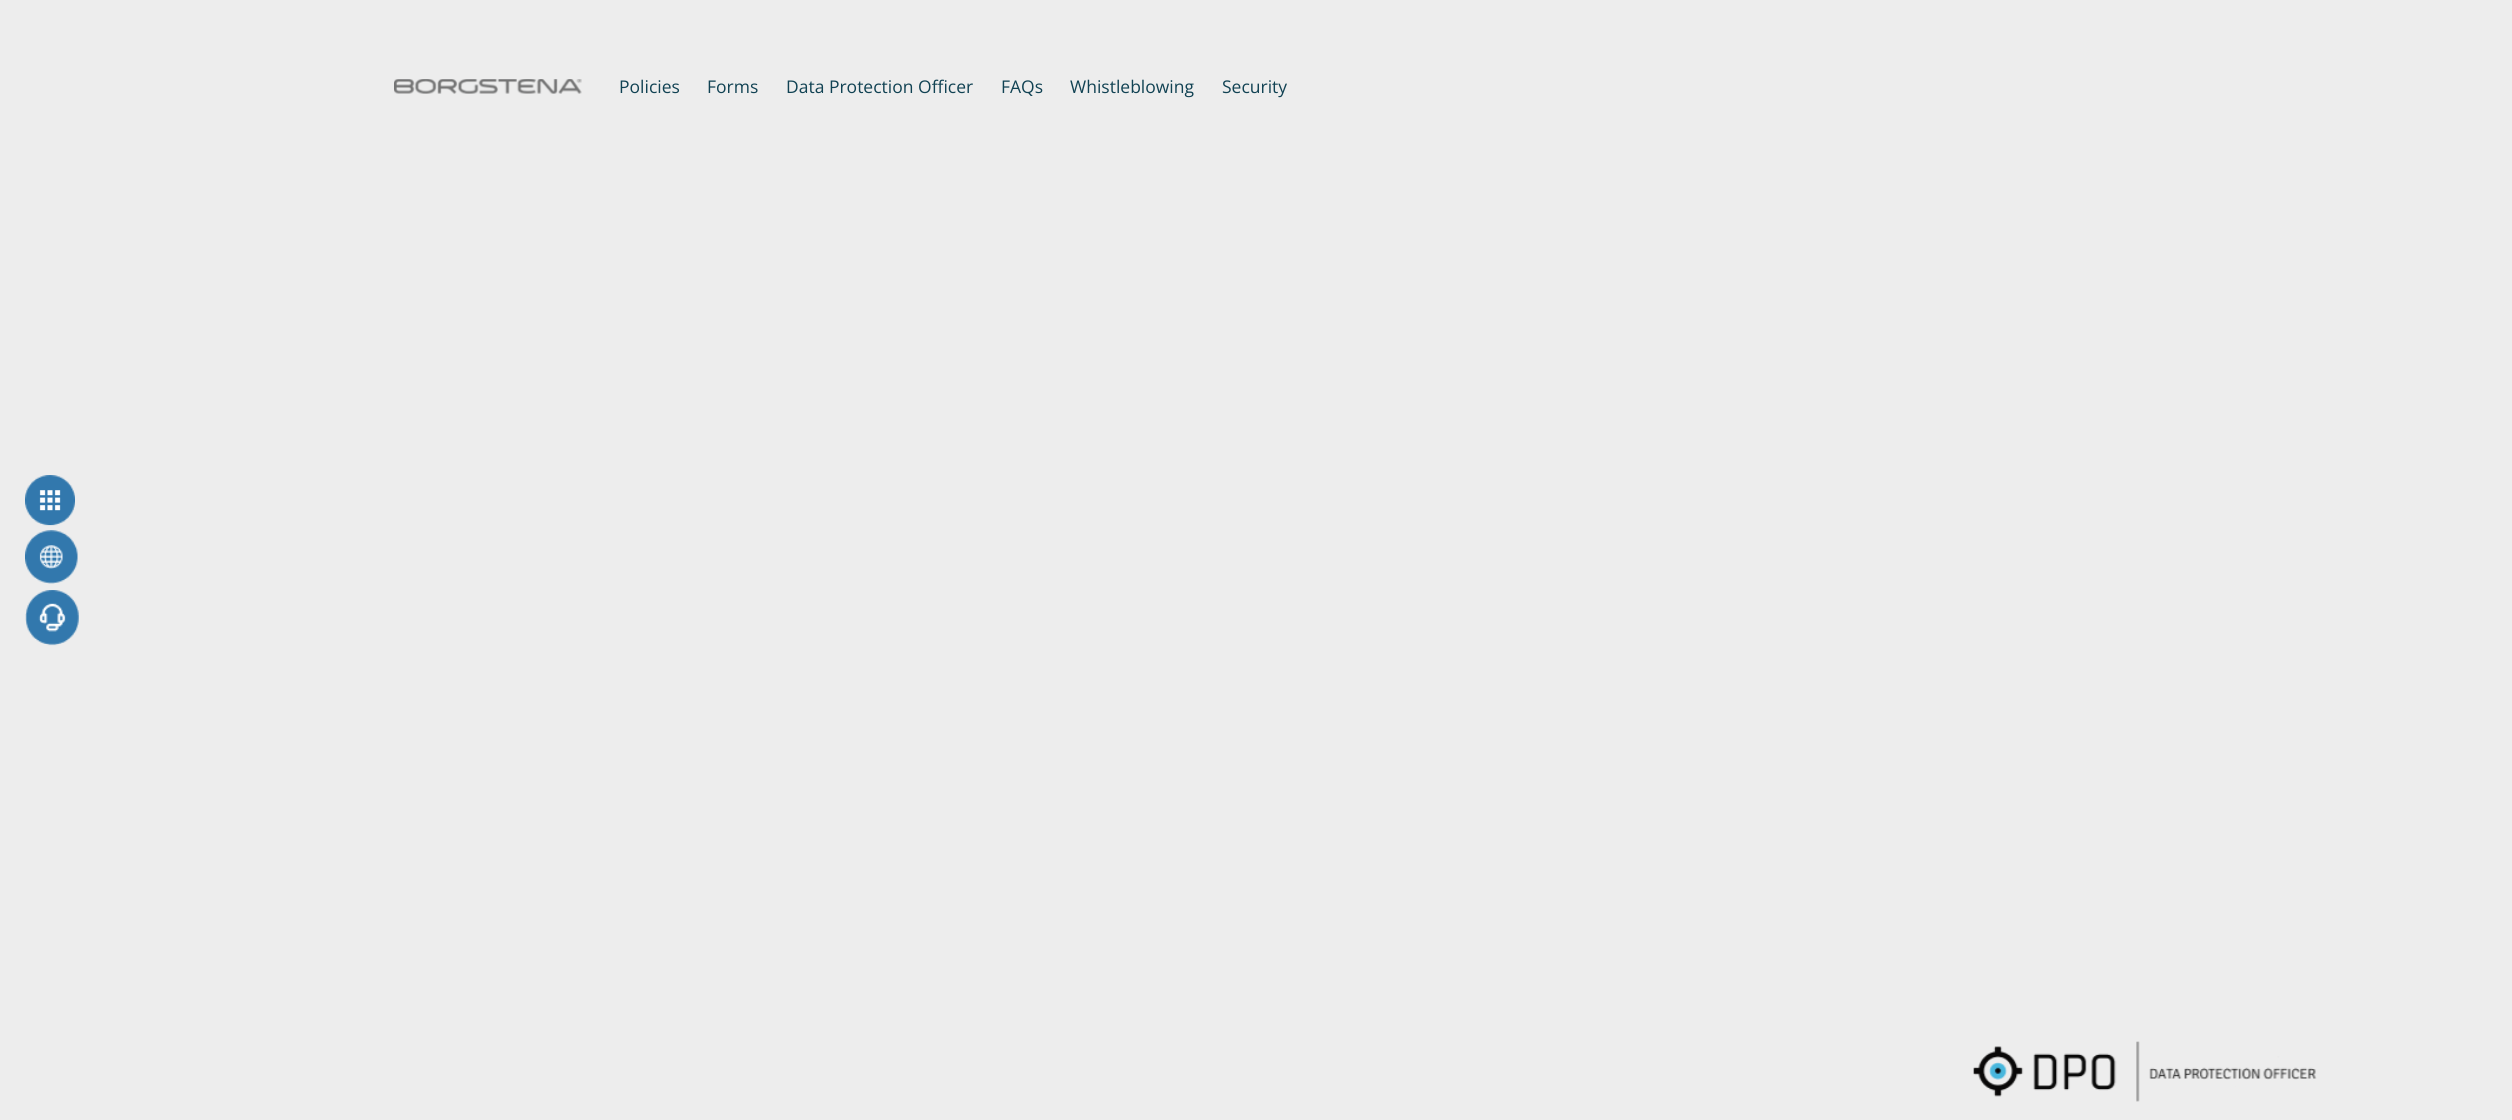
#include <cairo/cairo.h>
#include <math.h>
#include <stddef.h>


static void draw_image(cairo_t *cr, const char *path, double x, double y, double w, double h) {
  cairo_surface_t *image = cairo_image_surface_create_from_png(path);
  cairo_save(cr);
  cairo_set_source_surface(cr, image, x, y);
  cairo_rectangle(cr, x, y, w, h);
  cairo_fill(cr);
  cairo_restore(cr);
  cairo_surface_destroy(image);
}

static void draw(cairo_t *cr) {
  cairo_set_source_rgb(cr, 237 / 255.0, 237 / 255.0, 237 / 255.0);
  cairo_paint(cr);
  draw_image(cr, "images/1.png", 394, 79, 188, 15);
  draw_image(cr, "images/2.png", 25, 475, 50, 51);
  draw_image(cr, "images/3.png", 25, 530, 53, 54);
  draw_image(cr, "images/4.png", 25, 590, 54, 56);
  draw_image(cr, "images/5.png", 1973, 1041, 344, 61);
  cairo_select_font_face(cr, "Open Sans", CAIRO_FONT_SLANT_NORMAL, CAIRO_FONT_WEIGHT_NORMAL);
  cairo_set_font_size(cr, 17.5);
  cairo_set_source_rgb(cr, 17 / 255.0, 66 / 255.0, 83 / 255.0);
  cairo_move_to(cr, 619, 93);
  cairo_show_text(cr, "Policies");
  cairo_move_to(cr, 707, 93);
  cairo_show_text(cr, "Forms");
  cairo_move_to(cr, 786, 93);
  cairo_show_text(cr, "Data Protection Officer");
  cairo_move_to(cr, 1001, 93);
  cairo_show_text(cr, "FAQs");
  cairo_move_to(cr, 1070, 93);
  cairo_show_text(cr, "Whistleblowing");
  cairo_move_to(cr, 1222, 93);
  cairo_show_text(cr, "Security");
}

int main(void) {
  cairo_surface_t *surface = cairo_image_surface_create(CAIRO_FORMAT_RGB24, 2512, 1120);
  cairo_t *cr = cairo_create(surface);
  cairo_font_options_t *options = cairo_font_options_create();
  cairo_font_options_set_hint_metrics(options, CAIRO_HINT_METRICS_OFF);
  cairo_font_options_set_hint_style(options, CAIRO_HINT_STYLE_NONE);
  cairo_set_font_options(cr, options);
  cairo_set_miter_limit(cr, 4);
  draw(cr);
  cairo_surface_write_to_png(surface, "out.png");
  cairo_font_options_destroy(options);
  cairo_destroy(cr);
  cairo_surface_destroy(surface);
  return 0;
}
